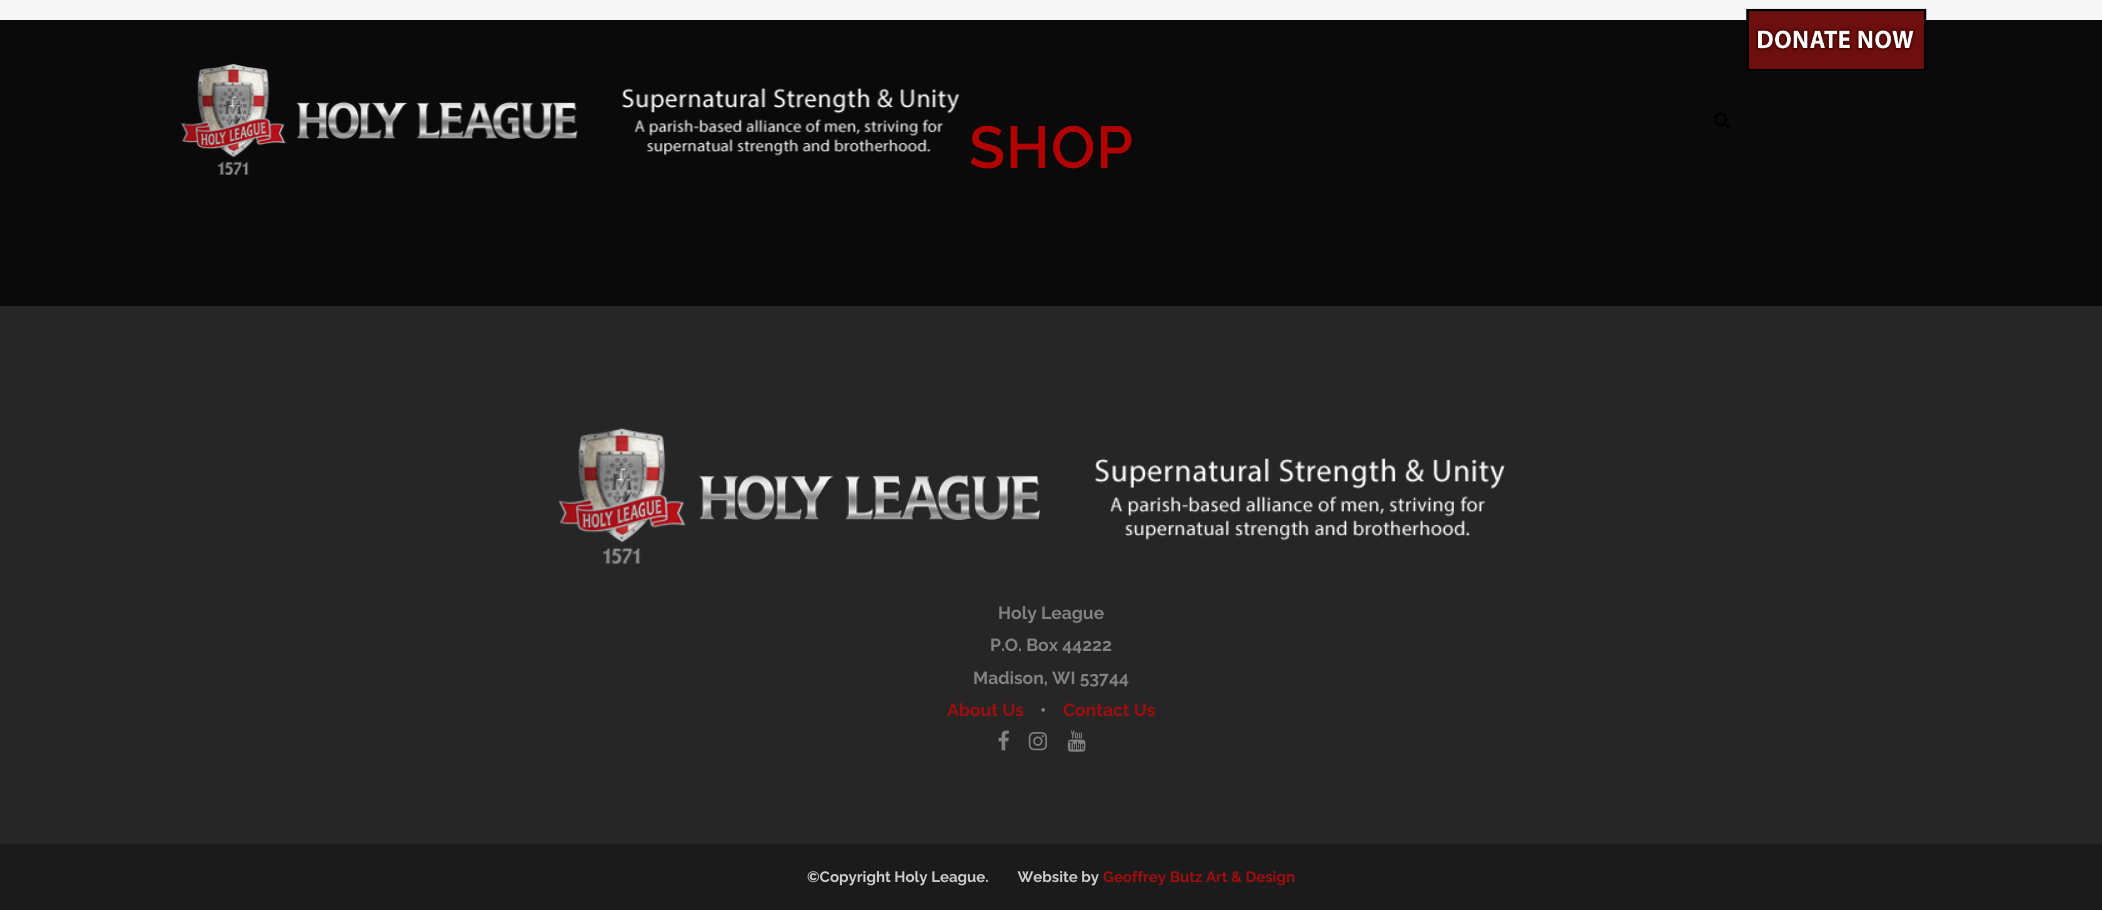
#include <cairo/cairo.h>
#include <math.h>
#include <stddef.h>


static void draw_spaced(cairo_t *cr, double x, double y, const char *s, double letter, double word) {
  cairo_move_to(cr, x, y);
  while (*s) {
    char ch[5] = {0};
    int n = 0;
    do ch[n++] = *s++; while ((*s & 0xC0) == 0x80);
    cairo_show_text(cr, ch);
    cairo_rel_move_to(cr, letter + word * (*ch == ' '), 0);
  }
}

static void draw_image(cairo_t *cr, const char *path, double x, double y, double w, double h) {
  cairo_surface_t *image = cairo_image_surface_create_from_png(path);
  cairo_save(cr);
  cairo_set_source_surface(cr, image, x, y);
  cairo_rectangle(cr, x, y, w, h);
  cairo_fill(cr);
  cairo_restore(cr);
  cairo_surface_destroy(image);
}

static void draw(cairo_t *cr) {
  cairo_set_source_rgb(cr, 10 / 255.0, 10 / 255.0, 10 / 255.0);
  cairo_paint(cr);
  cairo_set_source_rgb(cr, 246 / 255.0, 246 / 255.0, 246 / 255.0);
  cairo_rectangle(cr, 0, 0, 2102, 20);
  cairo_fill(cr);
  draw_image(cr, "images/1.png", 1746, 8, 181, 63);
  draw_image(cr, "images/2.png", 181, 63, 779, 112);
  draw_image(cr, "images/3.png", 1714, 112, 16, 17);
  cairo_set_source_rgb(cr, 38 / 255.0, 38 / 255.0, 38 / 255.0);
  cairo_rectangle(cr, 0, 306, 2102, 538);
  cairo_fill(cr);
  draw_image(cr, "images/4.png", 558, 428, 947, 136);
  draw_image(cr, "images/5.png", 998, 730, 11, 21);
  draw_image(cr, "images/6.png", 1028, 732, 19, 19);
  draw_image(cr, "images/7.png", 1067, 730, 19, 22);
  cairo_set_source_rgb(cr, 27 / 255.0, 27 / 255.0, 27 / 255.0);
  cairo_rectangle(cr, 0, 844, 2102, 66);
  cairo_fill(cr);
  cairo_select_font_face(cr, "Raleway SemiBold", CAIRO_FONT_SLANT_NORMAL, CAIRO_FONT_WEIGHT_NORMAL);
  cairo_set_font_size(cr, 59);
  cairo_set_source_rgb(cr, 178 / 255.0, 3 / 255.0, 3 / 255.0);
  draw_spaced(cr, 969, 168, "SHOP", 1, 0);
  cairo_select_font_face(cr, "Raleway", CAIRO_FONT_SLANT_NORMAL, CAIRO_FONT_WEIGHT_BOLD);
  cairo_set_font_size(cr, 17.5);
  cairo_set_source_rgb(cr, 129 / 255.0, 129 / 255.0, 129 / 255.0);
  cairo_move_to(cr, 998, 619);
  cairo_show_text(cr, "Holy League");
  cairo_move_to(cr, 990, 651);
  cairo_show_text(cr, "P.O. Box 44222");
  cairo_move_to(cr, 973, 684);
  cairo_show_text(cr, "Madison, WI 53744");
  cairo_set_source_rgb(cr, 161 / 255.0, 13 / 255.0, 13 / 255.0);
  cairo_move_to(cr, 947, 716);
  cairo_show_text(cr, "About Us");
  cairo_set_source_rgb(cr, 129 / 255.0, 129 / 255.0, 129 / 255.0);
  cairo_move_to(cr, 1040, 716);
  cairo_show_text(cr, "•");
  cairo_set_source_rgb(cr, 161 / 255.0, 13 / 255.0, 13 / 255.0);
  cairo_move_to(cr, 1063, 716);
  cairo_show_text(cr, "Contact Us");
  cairo_set_font_size(cr, 15);
  cairo_set_source_rgb(cr, 204 / 255.0, 204 / 255.0, 204 / 255.0);
  cairo_move_to(cr, 807, 882);
  cairo_show_text(cr, "©Copyright Holy League.        Website by");
  cairo_set_source_rgb(cr, 161 / 255.0, 13 / 255.0, 13 / 255.0);
  cairo_move_to(cr, 1103, 882);
  cairo_show_text(cr, "Geoffrey Butz Art & Design");
}

int main(void) {
  cairo_surface_t *surface = cairo_image_surface_create(CAIRO_FORMAT_RGB24, 2102, 910);
  cairo_t *cr = cairo_create(surface);
  cairo_font_options_t *options = cairo_font_options_create();
  cairo_font_options_set_hint_metrics(options, CAIRO_HINT_METRICS_OFF);
  cairo_font_options_set_hint_style(options, CAIRO_HINT_STYLE_NONE);
  cairo_set_font_options(cr, options);
  cairo_set_miter_limit(cr, 4);
  draw(cr);
  cairo_surface_write_to_png(surface, "out.png");
  cairo_font_options_destroy(options);
  cairo_destroy(cr);
  cairo_surface_destroy(surface);
  return 0;
}
